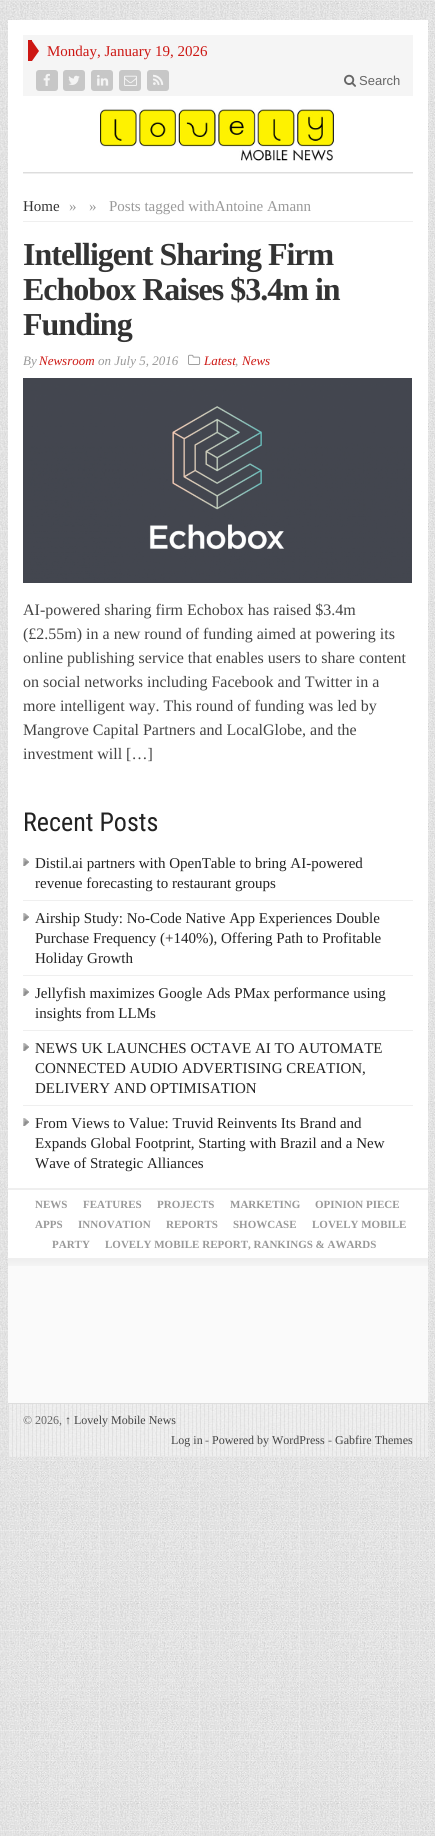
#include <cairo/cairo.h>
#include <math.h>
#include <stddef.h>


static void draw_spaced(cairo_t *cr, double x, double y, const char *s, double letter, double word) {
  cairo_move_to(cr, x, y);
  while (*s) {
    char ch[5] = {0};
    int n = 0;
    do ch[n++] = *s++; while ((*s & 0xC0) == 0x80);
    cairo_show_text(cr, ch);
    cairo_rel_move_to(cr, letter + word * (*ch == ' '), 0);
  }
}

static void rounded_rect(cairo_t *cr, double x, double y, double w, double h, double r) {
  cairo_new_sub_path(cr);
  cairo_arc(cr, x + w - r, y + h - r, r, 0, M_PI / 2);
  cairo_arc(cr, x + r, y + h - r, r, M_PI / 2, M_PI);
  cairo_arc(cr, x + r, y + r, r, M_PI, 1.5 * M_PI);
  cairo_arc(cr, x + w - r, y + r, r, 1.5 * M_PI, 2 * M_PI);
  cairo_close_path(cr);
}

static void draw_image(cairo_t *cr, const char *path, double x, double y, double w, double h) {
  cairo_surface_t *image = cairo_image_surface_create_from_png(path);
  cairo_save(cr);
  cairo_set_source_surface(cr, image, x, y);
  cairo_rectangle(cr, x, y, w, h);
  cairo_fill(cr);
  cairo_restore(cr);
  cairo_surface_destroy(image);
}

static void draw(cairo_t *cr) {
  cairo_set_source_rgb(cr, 1, 1, 1);
  cairo_paint(cr);
  draw_image(cr, "images/1.png", 0, 0, 435, 1836);
  cairo_set_source_rgb(cr, 1, 1, 1);
  cairo_rectangle(cr, 8, 20, 420, 1238);
  cairo_fill(cr);
  cairo_set_source_rgb(cr, 245 / 255.0, 245 / 255.0, 245 / 255.0);
  cairo_rectangle(cr, 23, 35, 390, 61);
  cairo_fill(cr);
  cairo_set_source_rgb(cr, 205 / 255.0, 23 / 255.0, 19 / 255.0);
  cairo_rectangle(cr, 28, 40, 4, 21);
  cairo_fill(cr);
  cairo_new_path(cr);
  cairo_move_to(cr, 32, 61);
  cairo_line_to(cr, 32, 41);
  cairo_line_to(cr, 39, 51);
  cairo_close_path(cr);
  cairo_fill(cr);
  cairo_set_source_rgb(cr, 199 / 255.0, 199 / 255.0, 199 / 255.0);
  rounded_rect(cr, 36, 70, 22, 21, 3);
  cairo_fill(cr);
  draw_image(cr, "images/2.png", 43, 73, 7, 13);
  rounded_rect(cr, 63, 70, 22, 21, 3);
  cairo_fill(cr);
  draw_image(cr, "images/3.png", 68, 75, 12, 10);
  rounded_rect(cr, 91, 70, 22, 21, 3);
  cairo_fill(cr);
  draw_image(cr, "images/4.png", 97, 75, 12, 11);
  rounded_rect(cr, 119, 70, 22, 21, 3);
  cairo_fill(cr);
  draw_image(cr, "images/5.png", 124, 75, 13, 11);
  rounded_rect(cr, 147, 70, 22, 21, 3);
  cairo_fill(cr);
  draw_image(cr, "images/6.png", 153, 74, 11, 11);
  draw_image(cr, "images/7.png", 344, 74, 12, 13);
  draw_image(cr, "images/8.png", 99, 108, 235, 53);
  cairo_set_source_rgb(cr, 221 / 255.0, 221 / 255.0, 221 / 255.0);
  cairo_rectangle(cr, 23, 172, 390, 1);
  cairo_fill(cr);
  cairo_set_source_rgb(cr, 239 / 255.0, 239 / 255.0, 239 / 255.0);
  cairo_rectangle(cr, 23, 173, 390, 1);
  cairo_fill(cr);
  cairo_rectangle(cr, 23, 221, 390, 1);
  cairo_fill(cr);
  draw_image(cr, "images/9.png", 188, 354, 13, 11);
  draw_image(cr, "images/10.png", 23, 378, 389, 205);
  draw_image(cr, "images/11.png", 23, 858, 6, 8);
  cairo_rectangle(cr, 23, 900, 390, 1);
  cairo_fill(cr);
  draw_image(cr, "images/11.png", 23, 913, 6, 8);
  cairo_rectangle(cr, 23, 975, 390, 1);
  cairo_fill(cr);
  draw_image(cr, "images/11.png", 23, 988, 6, 8);
  cairo_rectangle(cr, 23, 1030, 390, 1);
  cairo_fill(cr);
  draw_image(cr, "images/11.png", 23, 1043, 6, 8);
  cairo_rectangle(cr, 23, 1105, 390, 1);
  cairo_fill(cr);
  draw_image(cr, "images/11.png", 23, 1118, 6, 8);
  cairo_rectangle(cr, 8, 1188, 420, 2);
  cairo_fill(cr);
  cairo_rectangle(cr, 8, 1258, 420, 2);
  cairo_fill(cr);
  cairo_set_source_rgb(cr, 250 / 255.0, 250 / 255.0, 250 / 255.0);
  cairo_rectangle(cr, 8, 1260, 420, 143);
  cairo_fill(cr);
  draw_image(cr, "images/12.png", 8, 1260, 420, 6);
  draw_image(cr, "images/13.png", 8, 1404, 420, 53);
  cairo_set_source_rgb(cr, 221 / 255.0, 221 / 255.0, 221 / 255.0);
  cairo_rectangle(cr, 8, 1403, 420, 1);
  cairo_fill(cr);
  cairo_set_source_rgb(cr, 232 / 255.0, 232 / 255.0, 232 / 255.0);
  cairo_rectangle(cr, 23, 1456, 390, 1);
  cairo_fill(cr);
  cairo_select_font_face(cr, "Liberation Serif", CAIRO_FONT_SLANT_NORMAL, CAIRO_FONT_WEIGHT_NORMAL);
  cairo_set_font_size(cr, 15);
  cairo_set_source_rgb(cr, 205 / 255.0, 23 / 255.0, 19 / 255.0);
  cairo_move_to(cr, 47, 56);
  cairo_show_text(cr, "Monday, January 19, 2026");
  cairo_select_font_face(cr, "Liberation Sans", CAIRO_FONT_SLANT_NORMAL, CAIRO_FONT_WEIGHT_NORMAL);
  cairo_set_font_size(cr, 13);
  cairo_set_source_rgb(cr, 102 / 255.0, 102 / 255.0, 102 / 255.0);
  cairo_move_to(cr, 359, 85);
  cairo_show_text(cr, "Search");
  cairo_select_font_face(cr, "Liberation Serif", CAIRO_FONT_SLANT_NORMAL, CAIRO_FONT_WEIGHT_NORMAL);
  cairo_set_font_size(cr, 15);
  cairo_set_source_rgb(cr, 51 / 255.0, 51 / 255.0, 51 / 255.0);
  cairo_move_to(cr, 23, 211);
  cairo_show_text(cr, "Home");
  cairo_set_source_rgb(cr, 153 / 255.0, 153 / 255.0, 153 / 255.0);
  cairo_move_to(cr, 69, 211);
  cairo_show_text(cr, "»");
  cairo_move_to(cr, 89, 211);
  cairo_show_text(cr, "»");
  cairo_move_to(cr, 109, 211);
  cairo_show_text(cr, "Posts tagged withAntoine Amann");
  cairo_select_font_face(cr, "Liberation Serif", CAIRO_FONT_SLANT_NORMAL, CAIRO_FONT_WEIGHT_BOLD);
  cairo_set_font_size(cr, 32);
  cairo_set_source_rgb(cr, 51 / 255.0, 51 / 255.0, 51 / 255.0);
  draw_spaced(cr, 23, 265, "Intelligent Sharing Firm", -1, 0);
  draw_spaced(cr, 23, 300, "Echobox Raises $3.4m in", -1, 0);
  draw_spaced(cr, 23, 335, "Funding", -1, 0);
  cairo_select_font_face(cr, "Liberation Serif", CAIRO_FONT_SLANT_ITALIC, CAIRO_FONT_WEIGHT_NORMAL);
  cairo_set_font_size(cr, 13);
  cairo_set_source_rgb(cr, 153 / 255.0, 153 / 255.0, 153 / 255.0);
  cairo_move_to(cr, 23, 365);
  cairo_show_text(cr, "By");
  cairo_set_source_rgb(cr, 205 / 255.0, 23 / 255.0, 19 / 255.0);
  cairo_move_to(cr, 39, 365);
  cairo_show_text(cr, "Newsroom");
  cairo_set_source_rgb(cr, 153 / 255.0, 153 / 255.0, 153 / 255.0);
  cairo_move_to(cr, 98, 365);
  cairo_show_text(cr, "on July 5, 2016");
  cairo_set_source_rgb(cr, 205 / 255.0, 23 / 255.0, 19 / 255.0);
  cairo_move_to(cr, 204, 365);
  cairo_show_text(cr, "Latest");
  cairo_set_source_rgb(cr, 153 / 255.0, 153 / 255.0, 153 / 255.0);
  cairo_move_to(cr, 235, 365);
  cairo_show_text(cr, ",");
  cairo_set_source_rgb(cr, 205 / 255.0, 23 / 255.0, 19 / 255.0);
  cairo_move_to(cr, 242, 365);
  cairo_show_text(cr, "News");
  cairo_select_font_face(cr, "Liberation Serif", CAIRO_FONT_SLANT_NORMAL, CAIRO_FONT_WEIGHT_NORMAL);
  cairo_set_font_size(cr, 16);
  cairo_set_source_rgb(cr, 68 / 255.0, 68 / 255.0, 68 / 255.0);
  cairo_move_to(cr, 23, 615);
  cairo_show_text(cr, "AI-powered sharing firm Echobox has raised $3.4m");
  cairo_move_to(cr, 23, 639);
  cairo_show_text(cr, "(£2.55m) in a new round of funding aimed at powering its");
  cairo_move_to(cr, 23, 663);
  cairo_show_text(cr, "online publishing service that enables users to share content");
  cairo_move_to(cr, 23, 687);
  cairo_show_text(cr, "on social networks including Facebook and Twitter in a");
  cairo_move_to(cr, 23, 711);
  cairo_show_text(cr, "more intelligent way. This round of funding was led by");
  cairo_move_to(cr, 23, 735);
  cairo_show_text(cr, "Mangrove Capital Partners and LocalGlobe, and the");
  cairo_move_to(cr, 23, 759);
  cairo_show_text(cr, "investment will […]");
  cairo_select_font_face(cr, "Roboto Condensed", CAIRO_FONT_SLANT_NORMAL, CAIRO_FONT_WEIGHT_NORMAL);
  cairo_set_font_size(cr, 26);
  cairo_set_source_rgb(cr, 34 / 255.0, 34 / 255.0, 34 / 255.0);
  cairo_move_to(cr, 23, 831);
  cairo_show_text(cr, "Recent Posts");
  cairo_select_font_face(cr, "Liberation Serif", CAIRO_FONT_SLANT_NORMAL, CAIRO_FONT_WEIGHT_NORMAL);
  cairo_set_font_size(cr, 15);
  cairo_move_to(cr, 35, 868);
  cairo_show_text(cr, "Distil.ai partners with OpenTable to bring AI-powered");
  cairo_move_to(cr, 35, 888);
  cairo_show_text(cr, "revenue forecasting to restaurant groups");
  cairo_move_to(cr, 35, 923);
  cairo_show_text(cr, "Airship Study: No-Code Native App Experiences Double");
  cairo_move_to(cr, 35, 943);
  cairo_show_text(cr, "Purchase Frequency (+140%), Offering Path to Profitable");
  cairo_move_to(cr, 35, 963);
  cairo_show_text(cr, "Holiday Growth");
  cairo_move_to(cr, 35, 998);
  cairo_show_text(cr, "Jellyfish maximizes Google Ads PMax performance using");
  cairo_move_to(cr, 35, 1018);
  cairo_show_text(cr, "insights from LLMs");
  cairo_move_to(cr, 35, 1053);
  cairo_show_text(cr, "NEWS UK LAUNCHES OCTAVE AI TO AUTOMATE");
  cairo_move_to(cr, 35, 1073);
  cairo_show_text(cr, "CONNECTED AUDIO ADVERTISING CREATION,");
  cairo_move_to(cr, 35, 1093);
  cairo_show_text(cr, "DELIVERY AND OPTIMISATION");
  cairo_move_to(cr, 35, 1128);
  cairo_show_text(cr, "From Views to Value: Truvid Reinvents Its Brand and");
  cairo_move_to(cr, 35, 1148);
  cairo_show_text(cr, "Expands Global Footprint, Starting with Brazil and a New");
  cairo_move_to(cr, 35, 1168);
  cairo_show_text(cr, "Wave of Strategic Alliances");
  cairo_select_font_face(cr, "Liberation Serif", CAIRO_FONT_SLANT_NORMAL, CAIRO_FONT_WEIGHT_BOLD);
  cairo_set_font_size(cr, 11);
  cairo_set_source_rgb(cr, 153 / 255.0, 153 / 255.0, 153 / 255.0);
  cairo_move_to(cr, 35, 1208);
  cairo_show_text(cr, "NEWS");
  cairo_move_to(cr, 83, 1208);
  cairo_show_text(cr, "FEATURES");
  cairo_move_to(cr, 157, 1208);
  cairo_show_text(cr, "PROJECTS");
  cairo_move_to(cr, 230, 1208);
  cairo_show_text(cr, "MARKETING");
  cairo_move_to(cr, 315, 1208);
  cairo_show_text(cr, "OPINION PIECE");
  cairo_move_to(cr, 35, 1228);
  cairo_show_text(cr, "APPS");
  cairo_move_to(cr, 78, 1228);
  cairo_show_text(cr, "INNOVATION");
  cairo_move_to(cr, 166, 1228);
  cairo_show_text(cr, "REPORTS");
  cairo_move_to(cr, 233, 1228);
  cairo_show_text(cr, "SHOWCASE");
  cairo_move_to(cr, 312, 1228);
  cairo_show_text(cr, "LOVELY MOBILE");
  cairo_move_to(cr, 52, 1248);
  cairo_show_text(cr, "PARTY");
  cairo_move_to(cr, 105, 1248);
  cairo_show_text(cr, "LOVELY MOBILE REPORT, RANKINGS & AWARDS");
  cairo_select_font_face(cr, "Liberation Serif", CAIRO_FONT_SLANT_NORMAL, CAIRO_FONT_WEIGHT_NORMAL);
  cairo_set_font_size(cr, 12);
  cairo_set_source_rgb(cr, 102 / 255.0, 102 / 255.0, 102 / 255.0);
  cairo_move_to(cr, 23, 1424);
  cairo_show_text(cr, "© 2026,");
  cairo_select_font_face(cr, "Liberation Serif", CAIRO_FONT_SLANT_NORMAL, CAIRO_FONT_WEIGHT_BOLD);
  cairo_set_source_rgb(cr, 68 / 255.0, 68 / 255.0, 68 / 255.0);
  cairo_move_to(cr, 65, 1424);
  cairo_show_text(cr, "↑");
  cairo_select_font_face(cr, "Liberation Serif", CAIRO_FONT_SLANT_NORMAL, CAIRO_FONT_WEIGHT_NORMAL);
  cairo_move_to(cr, 74, 1424);
  cairo_show_text(cr, "Lovely Mobile News");
  cairo_move_to(cr, 171, 1444);
  cairo_show_text(cr, "Log in");
  cairo_set_source_rgb(cr, 102 / 255.0, 102 / 255.0, 102 / 255.0);
  cairo_move_to(cr, 205, 1444);
  cairo_show_text(cr, "-");
  cairo_set_source_rgb(cr, 68 / 255.0, 68 / 255.0, 68 / 255.0);
  cairo_move_to(cr, 212, 1444);
  cairo_show_text(cr, "Powered by WordPress");
  cairo_set_source_rgb(cr, 102 / 255.0, 102 / 255.0, 102 / 255.0);
  cairo_move_to(cr, 328, 1444);
  cairo_show_text(cr, "-");
  cairo_set_source_rgb(cr, 68 / 255.0, 68 / 255.0, 68 / 255.0);
  cairo_move_to(cr, 335, 1444);
  cairo_show_text(cr, "Gabfire Themes");
}

int main(void) {
  cairo_surface_t *surface = cairo_image_surface_create(CAIRO_FORMAT_RGB24, 435, 1836);
  cairo_t *cr = cairo_create(surface);
  cairo_font_options_t *options = cairo_font_options_create();
  cairo_font_options_set_hint_metrics(options, CAIRO_HINT_METRICS_OFF);
  cairo_font_options_set_hint_style(options, CAIRO_HINT_STYLE_NONE);
  cairo_set_font_options(cr, options);
  cairo_set_miter_limit(cr, 4);
  draw(cr);
  cairo_surface_write_to_png(surface, "out.png");
  cairo_font_options_destroy(options);
  cairo_destroy(cr);
  cairo_surface_destroy(surface);
  return 0;
}
